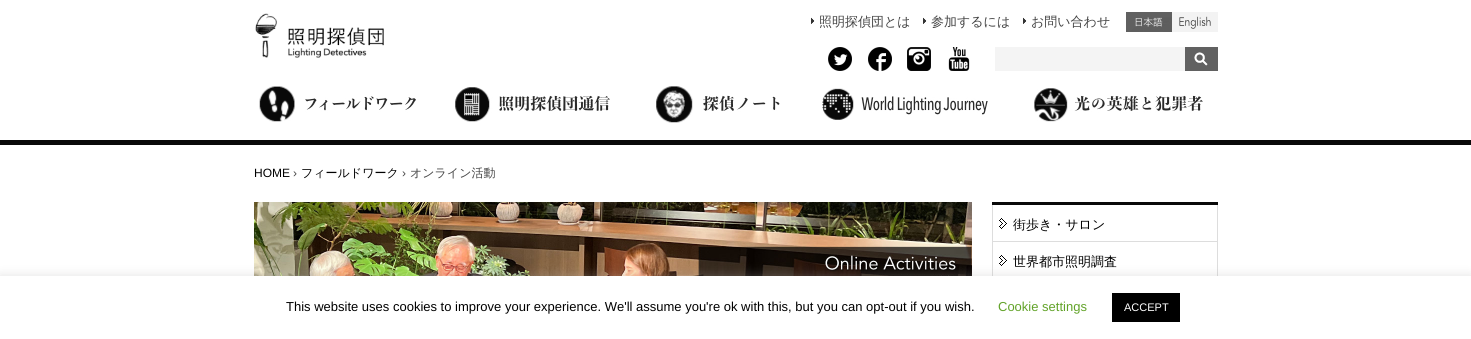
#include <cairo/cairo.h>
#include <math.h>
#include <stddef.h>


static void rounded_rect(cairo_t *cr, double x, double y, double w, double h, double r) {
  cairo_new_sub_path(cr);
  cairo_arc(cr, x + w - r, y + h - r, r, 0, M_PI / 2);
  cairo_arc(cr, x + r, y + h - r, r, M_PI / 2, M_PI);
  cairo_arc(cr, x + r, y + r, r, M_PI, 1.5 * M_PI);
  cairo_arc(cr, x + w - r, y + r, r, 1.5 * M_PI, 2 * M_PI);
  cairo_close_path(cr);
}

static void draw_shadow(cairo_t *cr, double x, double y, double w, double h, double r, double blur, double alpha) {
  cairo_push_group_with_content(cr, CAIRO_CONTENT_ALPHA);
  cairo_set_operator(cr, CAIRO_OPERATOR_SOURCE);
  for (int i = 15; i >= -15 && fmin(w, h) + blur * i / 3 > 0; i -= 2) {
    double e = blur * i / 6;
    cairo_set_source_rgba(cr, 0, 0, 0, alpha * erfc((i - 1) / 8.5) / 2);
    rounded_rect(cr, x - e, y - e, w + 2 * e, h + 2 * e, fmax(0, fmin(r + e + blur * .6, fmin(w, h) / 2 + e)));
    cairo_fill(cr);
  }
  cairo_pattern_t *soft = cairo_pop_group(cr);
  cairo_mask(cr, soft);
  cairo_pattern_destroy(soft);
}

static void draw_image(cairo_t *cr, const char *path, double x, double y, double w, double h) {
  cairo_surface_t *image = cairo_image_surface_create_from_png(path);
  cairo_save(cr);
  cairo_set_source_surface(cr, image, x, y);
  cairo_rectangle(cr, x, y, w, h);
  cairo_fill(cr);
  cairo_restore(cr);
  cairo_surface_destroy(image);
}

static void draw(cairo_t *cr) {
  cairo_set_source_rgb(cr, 1, 1, 1);
  cairo_paint(cr);
  cairo_set_source_rgb(cr, 9 / 255.0, 9 / 255.0, 9 / 255.0);
  cairo_rectangle(cr, 0, 140, 1471, 5);
  cairo_fill(cr);
  draw_image(cr, "images/1.png", 255, 13, 129, 45);
  draw_image(cr, "images/2.png", 811, 17, 4, 7);
  draw_image(cr, "images/2.png", 923, 17, 4, 7);
  draw_image(cr, "images/2.png", 1023, 17, 4, 7);
  draw_image(cr, "images/3.png", 1126, 12, 46, 20);
  draw_image(cr, "images/4.png", 1172, 12, 46, 20);
  draw_image(cr, "images/5.png", 828, 47, 24, 24);
  draw_image(cr, "images/6.png", 868, 47, 24, 24);
  draw_image(cr, "images/7.png", 907, 47, 24, 24);
  draw_image(cr, "images/8.png", 948, 47, 22, 24);
  cairo_set_source_rgb(cr, 244 / 255.0, 244 / 255.0, 244 / 255.0);
  cairo_rectangle(cr, 995, 47, 190, 24);
  cairo_fill(cr);
  draw_image(cr, "images/9.png", 1185, 47, 33, 24);
  draw_image(cr, "images/10.png", 259, 86, 157, 36);
  draw_image(cr, "images/11.png", 455, 87, 155, 35);
  draw_image(cr, "images/12.png", 656, 86, 124, 37);
  draw_image(cr, "images/13.png", 822, 88, 166, 32);
  draw_image(cr, "images/14.png", 1034, 88, 169, 34);
  draw_image(cr, "images/15.png", 254, 202, 718, 74);
  cairo_set_source_rgb(cr, 9 / 255.0, 9 / 255.0, 9 / 255.0);
  cairo_rectangle(cr, 992, 202, 226, 3);
  cairo_fill(cr);
  cairo_set_source_rgb(cr, 221 / 255.0, 221 / 255.0, 221 / 255.0);
  cairo_rectangle(cr, 1217, 205, 1, 71);
  cairo_fill(cr);
  cairo_rectangle(cr, 992, 205, 1, 71);
  cairo_fill(cr);
  draw_image(cr, "images/16.png", 999, 218, 8, 11);
  draw_image(cr, "images/16.png", 999, 255, 8, 11);
  cairo_rectangle(cr, 993, 241, 224, 1);
  cairo_fill(cr);
  cairo_set_source_rgb(cr, 172 / 255.0, 171 / 255.0, 171 / 255.0);
  draw_shadow(cr, 0, 275, 1471, 63, 0, 5, 0.3);
  cairo_set_source_rgb(cr, 1, 1, 1);
  cairo_rectangle(cr, 0, 276, 1471, 63);
  cairo_fill(cr);
  cairo_set_source_rgb(cr, 0, 0, 0);
  cairo_rectangle(cr, 1112, 293, 68, 29);
  cairo_fill(cr);
  cairo_select_font_face(cr, "WenQuanYi Zen Hei Medium", CAIRO_FONT_SLANT_NORMAL, CAIRO_FONT_WEIGHT_NORMAL);
  cairo_set_font_size(cr, 13);
  cairo_set_source_rgb(cr, 68 / 255.0, 68 / 255.0, 68 / 255.0);
  cairo_move_to(cr, 819, 26);
  cairo_show_text(cr, "照明探偵団とは");
  cairo_move_to(cr, 931, 26);
  cairo_show_text(cr, "参加するには");
  cairo_move_to(cr, 1031, 26);
  cairo_show_text(cr, "お問い合わせ");
  cairo_select_font_face(cr, "Liberation Sans", CAIRO_FONT_SLANT_NORMAL, CAIRO_FONT_WEIGHT_NORMAL);
  cairo_set_font_size(cr, 12);
  cairo_set_source_rgb(cr, 0, 0, 0);
  cairo_move_to(cr, 254, 177);
  cairo_show_text(cr, "HOME");
  cairo_set_source_rgb(cr, 68 / 255.0, 68 / 255.0, 68 / 255.0);
  cairo_move_to(cr, 293, 177);
  cairo_show_text(cr, "›");
  cairo_select_font_face(cr, "WenQuanYi Zen Hei Medium", CAIRO_FONT_SLANT_NORMAL, CAIRO_FONT_WEIGHT_NORMAL);
  cairo_set_source_rgb(cr, 0, 0, 0);
  cairo_move_to(cr, 301, 177);
  cairo_show_text(cr, "フィールドワーク");
  cairo_select_font_face(cr, "Liberation Sans", CAIRO_FONT_SLANT_NORMAL, CAIRO_FONT_WEIGHT_NORMAL);
  cairo_set_source_rgb(cr, 68 / 255.0, 68 / 255.0, 68 / 255.0);
  cairo_move_to(cr, 402, 177);
  cairo_show_text(cr, "›");
  cairo_select_font_face(cr, "WenQuanYi Zen Hei Medium", CAIRO_FONT_SLANT_NORMAL, CAIRO_FONT_WEIGHT_NORMAL);
  cairo_move_to(cr, 410, 177);
  cairo_show_text(cr, "オンライン活動");
  cairo_set_font_size(cr, 13);
  cairo_set_source_rgb(cr, 0, 0, 0);
  cairo_move_to(cr, 1013, 229);
  cairo_show_text(cr, "街歩き・サロン");
  cairo_move_to(cr, 1013, 266);
  cairo_show_text(cr, "世界都市照明調査");
  cairo_select_font_face(cr, "Liberation Sans", CAIRO_FONT_SLANT_NORMAL, CAIRO_FONT_WEIGHT_NORMAL);
  cairo_move_to(cr, 286, 311);
  cairo_show_text(cr, "This website uses cookies to improve your experience. We'll assume you're ok with this, but you can opt-out if you wish.");
  cairo_set_source_rgb(cr, 98 / 255.0, 163 / 255.0, 41 / 255.0);
  cairo_move_to(cr, 998, 311);
  cairo_show_text(cr, "Cookie settings");
  cairo_set_font_size(cr, 11);
  cairo_set_source_rgb(cr, 1, 1, 1);
  cairo_move_to(cr, 1124, 311);
  cairo_show_text(cr, "ACCEPT");
}

int main(void) {
  cairo_surface_t *surface = cairo_image_surface_create(CAIRO_FORMAT_RGB24, 1471, 339);
  cairo_t *cr = cairo_create(surface);
  cairo_font_options_t *options = cairo_font_options_create();
  cairo_font_options_set_hint_metrics(options, CAIRO_HINT_METRICS_OFF);
  cairo_font_options_set_hint_style(options, CAIRO_HINT_STYLE_NONE);
  cairo_set_font_options(cr, options);
  cairo_set_miter_limit(cr, 4);
  draw(cr);
  cairo_surface_write_to_png(surface, "out.png");
  cairo_font_options_destroy(options);
  cairo_destroy(cr);
  cairo_surface_destroy(surface);
  return 0;
}
